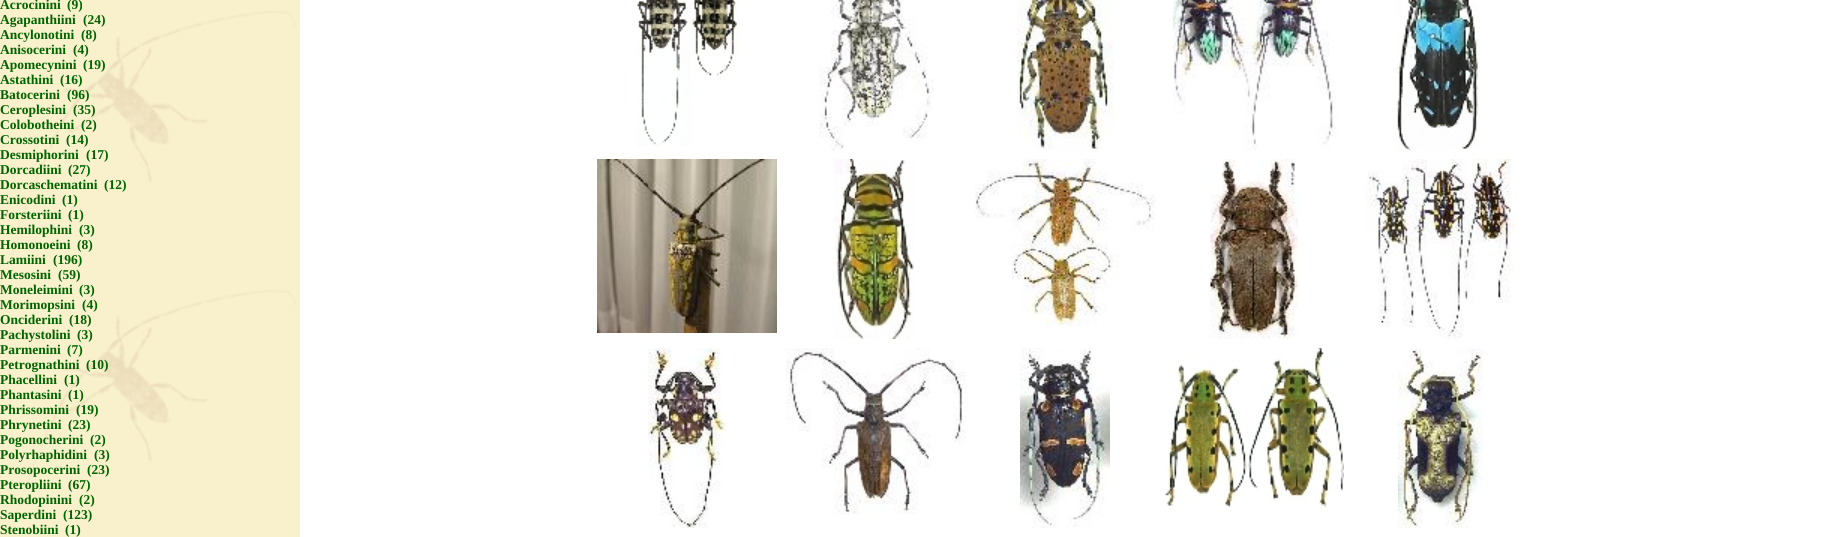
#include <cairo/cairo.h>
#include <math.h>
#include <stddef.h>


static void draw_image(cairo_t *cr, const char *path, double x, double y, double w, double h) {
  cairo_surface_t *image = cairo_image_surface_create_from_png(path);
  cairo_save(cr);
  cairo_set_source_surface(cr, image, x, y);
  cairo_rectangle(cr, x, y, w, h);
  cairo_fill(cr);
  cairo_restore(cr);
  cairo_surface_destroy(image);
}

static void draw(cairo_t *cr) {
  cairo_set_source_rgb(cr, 1, 1, 1);
  cairo_paint(cr);
  draw_image(cr, "images/1.png", 0, 0, 300, 537);
  draw_image(cr, "images/2.png", 637, 0, 102, 147);
  draw_image(cr, "images/3.png", 819, 0, 114, 150);
  draw_image(cr, "images/4.png", 1017, 0, 96, 150);
  draw_image(cr, "images/5.png", 1173, 0, 164, 150);
  draw_image(cr, "images/6.png", 1396, 0, 83, 150);
  draw_image(cr, "images/7.png", 597, 159, 180, 174);
  draw_image(cr, "images/8.png", 834, 159, 80, 180);
  draw_image(cr, "images/9.png", 975, 159, 180, 167);
  draw_image(cr, "images/10.png", 1210, 159, 88, 180);
  draw_image(cr, "images/11.png", 1366, 159, 149, 180);
  draw_image(cr, "images/12.png", 648, 348, 80, 180);
  draw_image(cr, "images/13.png", 786, 348, 180, 167);
  draw_image(cr, "images/14.png", 1020, 348, 90, 180);
  draw_image(cr, "images/15.png", 1165, 348, 179, 159);
  draw_image(cr, "images/16.png", 1398, 348, 85, 180);
  cairo_select_font_face(cr, "Liberation Serif", CAIRO_FONT_SLANT_NORMAL, CAIRO_FONT_WEIGHT_BOLD);
  cairo_set_font_size(cr, 13.5);
  cairo_set_source_rgb(cr, 0, 100 / 255.0, 0);
  cairo_move_to(cr, 0, 9);
  cairo_show_text(cr, "Acrocinini");
  cairo_move_to(cr, 67, 9);
  cairo_show_text(cr, "(9)");
  cairo_move_to(cr, 0, 24);
  cairo_show_text(cr, "Agapanthiini");
  cairo_move_to(cr, 83, 24);
  cairo_show_text(cr, "(24)");
  cairo_move_to(cr, 0, 39);
  cairo_show_text(cr, "Ancylonotini");
  cairo_move_to(cr, 81, 39);
  cairo_show_text(cr, "(8)");
  cairo_move_to(cr, 0, 54);
  cairo_show_text(cr, "Anisocerini");
  cairo_move_to(cr, 73, 54);
  cairo_show_text(cr, "(4)");
  cairo_move_to(cr, 0, 69);
  cairo_show_text(cr, "Apomecynini");
  cairo_move_to(cr, 83, 69);
  cairo_show_text(cr, "(19)");
  cairo_move_to(cr, 0, 84);
  cairo_show_text(cr, "Astathini");
  cairo_move_to(cr, 60, 84);
  cairo_show_text(cr, "(16)");
  cairo_move_to(cr, 0, 99);
  cairo_show_text(cr, "Batocerini");
  cairo_move_to(cr, 67, 99);
  cairo_show_text(cr, "(96)");
  cairo_move_to(cr, 0, 114);
  cairo_show_text(cr, "Ceroplesini");
  cairo_move_to(cr, 73, 114);
  cairo_show_text(cr, "(35)");
  cairo_move_to(cr, 0, 129);
  cairo_show_text(cr, "Colobotheini");
  cairo_move_to(cr, 81, 129);
  cairo_show_text(cr, "(2)");
  cairo_move_to(cr, 0, 144);
  cairo_show_text(cr, "Crossotini");
  cairo_move_to(cr, 66, 144);
  cairo_show_text(cr, "(14)");
  cairo_move_to(cr, 0, 159);
  cairo_show_text(cr, "Desmiphorini");
  cairo_move_to(cr, 86, 159);
  cairo_show_text(cr, "(17)");
  cairo_move_to(cr, 0, 174);
  cairo_show_text(cr, "Dorcadiini");
  cairo_move_to(cr, 68, 174);
  cairo_show_text(cr, "(27)");
  cairo_move_to(cr, 0, 189);
  cairo_show_text(cr, "Dorcaschematini");
  cairo_move_to(cr, 104, 189);
  cairo_show_text(cr, "(12)");
  cairo_move_to(cr, 0, 204);
  cairo_show_text(cr, "Enicodini");
  cairo_move_to(cr, 62, 204);
  cairo_show_text(cr, "(1)");
  cairo_move_to(cr, 0, 219);
  cairo_show_text(cr, "Forsteriini");
  cairo_move_to(cr, 68, 219);
  cairo_show_text(cr, "(1)");
  cairo_move_to(cr, 0, 234);
  cairo_show_text(cr, "Hemilophini");
  cairo_move_to(cr, 79, 234);
  cairo_show_text(cr, "(3)");
  cairo_move_to(cr, 0, 249);
  cairo_show_text(cr, "Homonoeini");
  cairo_move_to(cr, 77, 249);
  cairo_show_text(cr, "(8)");
  cairo_move_to(cr, 0, 264);
  cairo_show_text(cr, "Lamiini");
  cairo_move_to(cr, 53, 264);
  cairo_show_text(cr, "(196)");
  cairo_move_to(cr, 0, 279);
  cairo_show_text(cr, "Mesosini");
  cairo_move_to(cr, 58, 279);
  cairo_show_text(cr, "(59)");
  cairo_move_to(cr, 0, 294);
  cairo_show_text(cr, "Moneleimini");
  cairo_move_to(cr, 79, 294);
  cairo_show_text(cr, "(3)");
  cairo_move_to(cr, 0, 309);
  cairo_show_text(cr, "Morimopsini");
  cairo_move_to(cr, 82, 309);
  cairo_show_text(cr, "(4)");
  cairo_move_to(cr, 0, 324);
  cairo_show_text(cr, "Onciderini");
  cairo_move_to(cr, 69, 324);
  cairo_show_text(cr, "(18)");
  cairo_move_to(cr, 0, 339);
  cairo_show_text(cr, "Pachystolini");
  cairo_move_to(cr, 77, 339);
  cairo_show_text(cr, "(3)");
  cairo_move_to(cr, 0, 354);
  cairo_show_text(cr, "Parmenini");
  cairo_move_to(cr, 67, 354);
  cairo_show_text(cr, "(7)");
  cairo_move_to(cr, 0, 369);
  cairo_show_text(cr, "Petrognathini");
  cairo_move_to(cr, 86, 369);
  cairo_show_text(cr, "(10)");
  cairo_move_to(cr, 0, 384);
  cairo_show_text(cr, "Phacellini");
  cairo_move_to(cr, 64, 384);
  cairo_show_text(cr, "(1)");
  cairo_move_to(cr, 0, 399);
  cairo_show_text(cr, "Phantasini");
  cairo_move_to(cr, 68, 399);
  cairo_show_text(cr, "(1)");
  cairo_move_to(cr, 0, 414);
  cairo_show_text(cr, "Phrissomini");
  cairo_move_to(cr, 76, 414);
  cairo_show_text(cr, "(19)");
  cairo_move_to(cr, 0, 429);
  cairo_show_text(cr, "Phrynetini");
  cairo_move_to(cr, 68, 429);
  cairo_show_text(cr, "(23)");
  cairo_move_to(cr, 0, 444);
  cairo_show_text(cr, "Pogonocherini");
  cairo_move_to(cr, 90, 444);
  cairo_show_text(cr, "(2)");
  cairo_move_to(cr, 0, 459);
  cairo_show_text(cr, "Polyrhaphidini");
  cairo_move_to(cr, 94, 459);
  cairo_show_text(cr, "(3)");
  cairo_move_to(cr, 0, 474);
  cairo_show_text(cr, "Prosopocerini");
  cairo_move_to(cr, 87, 474);
  cairo_show_text(cr, "(23)");
  cairo_move_to(cr, 0, 489);
  cairo_show_text(cr, "Pteropliini");
  cairo_move_to(cr, 68, 489);
  cairo_show_text(cr, "(67)");
  cairo_move_to(cr, 0, 504);
  cairo_show_text(cr, "Rhodopinini");
  cairo_move_to(cr, 79, 504);
  cairo_show_text(cr, "(2)");
  cairo_move_to(cr, 0, 519);
  cairo_show_text(cr, "Saperdini");
  cairo_move_to(cr, 63, 519);
  cairo_show_text(cr, "(123)");
  cairo_move_to(cr, 0, 534);
  cairo_show_text(cr, "Stenobiini");
  cairo_move_to(cr, 65, 534);
  cairo_show_text(cr, "(1)");
}

int main(void) {
  cairo_surface_t *surface = cairo_image_surface_create(CAIRO_FORMAT_RGB24, 1823, 537);
  cairo_t *cr = cairo_create(surface);
  cairo_font_options_t *options = cairo_font_options_create();
  cairo_font_options_set_hint_metrics(options, CAIRO_HINT_METRICS_OFF);
  cairo_font_options_set_hint_style(options, CAIRO_HINT_STYLE_NONE);
  cairo_set_font_options(cr, options);
  cairo_set_miter_limit(cr, 4);
  draw(cr);
  cairo_surface_write_to_png(surface, "out.png");
  cairo_font_options_destroy(options);
  cairo_destroy(cr);
  cairo_surface_destroy(surface);
  return 0;
}
